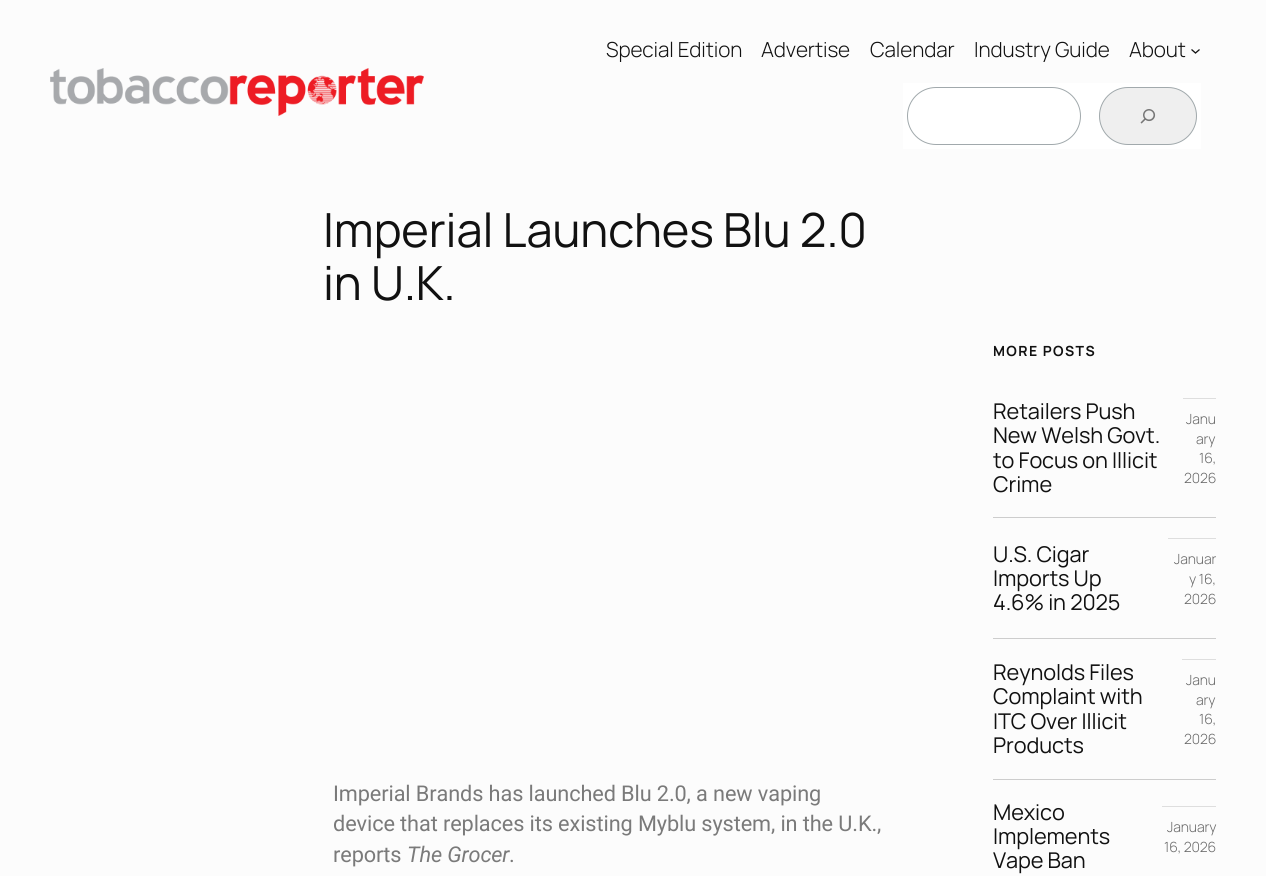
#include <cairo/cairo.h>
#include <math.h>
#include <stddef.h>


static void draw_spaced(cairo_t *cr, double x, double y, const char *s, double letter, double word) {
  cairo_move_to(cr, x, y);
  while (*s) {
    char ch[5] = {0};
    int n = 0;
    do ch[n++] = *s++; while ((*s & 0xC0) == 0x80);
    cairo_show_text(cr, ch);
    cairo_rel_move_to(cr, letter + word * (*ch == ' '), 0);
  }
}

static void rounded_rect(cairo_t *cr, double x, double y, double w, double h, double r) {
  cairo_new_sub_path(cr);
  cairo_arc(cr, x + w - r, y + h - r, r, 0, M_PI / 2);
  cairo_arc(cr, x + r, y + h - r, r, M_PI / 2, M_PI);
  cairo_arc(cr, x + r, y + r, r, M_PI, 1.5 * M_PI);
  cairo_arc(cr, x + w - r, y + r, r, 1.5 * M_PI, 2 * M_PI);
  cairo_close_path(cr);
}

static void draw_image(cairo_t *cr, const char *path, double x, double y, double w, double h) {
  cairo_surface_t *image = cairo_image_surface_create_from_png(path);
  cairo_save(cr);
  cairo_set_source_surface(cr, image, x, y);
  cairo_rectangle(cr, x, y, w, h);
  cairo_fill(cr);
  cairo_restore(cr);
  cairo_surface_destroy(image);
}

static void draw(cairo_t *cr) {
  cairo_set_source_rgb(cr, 252 / 255.0, 252 / 255.0, 252 / 255.0);
  cairo_paint(cr);
  cairo_new_path(cr);
  cairo_move_to(cr, 1191.5, 49.5);
  cairo_line_to(cr, 1195.5, 53);
  cairo_line_to(cr, 1199.5, 49.5);
  cairo_set_source_rgb(cr, 17 / 255.0, 17 / 255.0, 17 / 255.0);
  cairo_set_line_width(cr, 1.3);
  cairo_stroke(cr);
  cairo_set_source_rgb(cr, 1, 1, 1);
  cairo_rectangle(cr, 903, 83, 298, 66);
  cairo_fill(cr);
  rounded_rect(cr, 907.5, 87.5, 173, 57, 28.5);
  cairo_set_source_rgb(cr, 161 / 255.0, 169 / 255.0, 172 / 255.0);
  cairo_set_line_width(cr, 1);
  cairo_stroke(cr);
  cairo_set_source_rgb(cr, 239 / 255.0, 239 / 255.0, 239 / 255.0);
  rounded_rect(cr, 1099.5, 87.5, 97, 57, 28.5);
  cairo_fill_preserve(cr);
  cairo_set_source_rgb(cr, 161 / 255.0, 169 / 255.0, 172 / 255.0);
  cairo_stroke(cr);
  draw_image(cr, "images/1.png", 1140, 109, 16, 15);
  draw_image(cr, "images/2.png", 50, 68, 374, 48);
  cairo_set_source_rgb(cr, 205 / 255.0, 205 / 255.0, 205 / 255.0);
  cairo_rectangle(cr, 993, 517, 223, 1);
  cairo_fill(cr);
  cairo_set_source_rgb(cr, 222 / 255.0, 222 / 255.0, 222 / 255.0);
  cairo_rectangle(cr, 1183, 398, 33, 1);
  cairo_fill(cr);
  cairo_set_source_rgb(cr, 205 / 255.0, 205 / 255.0, 205 / 255.0);
  cairo_rectangle(cr, 993, 638, 223, 1);
  cairo_fill(cr);
  cairo_set_source_rgb(cr, 222 / 255.0, 222 / 255.0, 222 / 255.0);
  cairo_rectangle(cr, 1168, 538, 48, 1);
  cairo_fill(cr);
  cairo_set_source_rgb(cr, 205 / 255.0, 205 / 255.0, 205 / 255.0);
  cairo_rectangle(cr, 993, 779, 223, 1);
  cairo_fill(cr);
  cairo_set_source_rgb(cr, 222 / 255.0, 222 / 255.0, 222 / 255.0);
  cairo_rectangle(cr, 1182, 659, 34, 1);
  cairo_fill(cr);
  cairo_rectangle(cr, 1162, 806, 54, 1);
  cairo_fill(cr);
  cairo_select_font_face(cr, "Manrope Light", CAIRO_FONT_SLANT_NORMAL, CAIRO_FONT_WEIGHT_NORMAL);
  cairo_set_font_size(cr, 20.75);
  cairo_set_source_rgb(cr, 17 / 255.0, 17 / 255.0, 17 / 255.0);
  draw_spaced(cr, 606, 57, "Special Edition", -0.1, 0);
  draw_spaced(cr, 761, 57, "Advertise", -0.1, 0);
  draw_spaced(cr, 870, 57, "Calendar", -0.1, 0);
  draw_spaced(cr, 974, 57, "Industry Guide", -0.1, 0);
  draw_spaced(cr, 1129, 57, "About", -0.1, 0);
  cairo_select_font_face(cr, "Manrope", CAIRO_FONT_SLANT_NORMAL, CAIRO_FONT_WEIGHT_NORMAL);
  cairo_set_font_size(cr, 47);
  draw_spaced(cr, 323, 247, "Imperial Launches Blu 2.0", -0.1, 0);
  draw_spaced(cr, 323, 300, "in U.K.", -0.1, 0);
  cairo_select_font_face(cr, "Roboto", CAIRO_FONT_SLANT_NORMAL, CAIRO_FONT_WEIGHT_NORMAL);
  cairo_set_font_size(cr, 21.7);
  cairo_set_source_rgb(cr, 122 / 255.0, 122 / 255.0, 122 / 255.0);
  draw_spaced(cr, 333, 801, "Imperial Brands has launched Blu 2.0, a new vaping", -0.1, 0);
  draw_spaced(cr, 333, 831, "device that replaces its existing Myblu system, in the U.K.,", -0.1, 0);
  draw_spaced(cr, 333, 862, "reports", -0.1, 0);
  cairo_select_font_face(cr, "Roboto", CAIRO_FONT_SLANT_ITALIC, CAIRO_FONT_WEIGHT_NORMAL);
  draw_spaced(cr, 407, 862, "The Grocer", -0.1, 0);
  cairo_select_font_face(cr, "Roboto", CAIRO_FONT_SLANT_NORMAL, CAIRO_FONT_WEIGHT_NORMAL);
  draw_spaced(cr, 509, 862, ".", -0.1, 0);
  cairo_select_font_face(cr, "Manrope", CAIRO_FONT_SLANT_NORMAL, CAIRO_FONT_WEIGHT_BOLD);
  cairo_set_font_size(cr, 14);
  cairo_set_source_rgb(cr, 17 / 255.0, 17 / 255.0, 17 / 255.0);
  draw_spaced(cr, 993, 356, "MORE POSTS", 1.4, 0);
  cairo_select_font_face(cr, "Manrope", CAIRO_FONT_SLANT_NORMAL, CAIRO_FONT_WEIGHT_NORMAL);
  cairo_set_font_size(cr, 21.7);
  draw_spaced(cr, 993, 419, "Retailers Push", -0.1, 0);
  draw_spaced(cr, 993, 443, "New Welsh Govt.", -0.1, 0);
  draw_spaced(cr, 993, 468, "to Focus on Illicit", -0.1, 0);
  draw_spaced(cr, 993, 492, "Crime", -0.1, 0);
  cairo_select_font_face(cr, "Manrope Light", CAIRO_FONT_SLANT_NORMAL, CAIRO_FONT_WEIGHT_NORMAL);
  cairo_set_font_size(cr, 14);
  cairo_set_source_rgb(cr, 104 / 255.0, 104 / 255.0, 104 / 255.0);
  draw_spaced(cr, 1186, 424, "Janu", -0.1, 0);
  draw_spaced(cr, 1196, 444, "ary", -0.1, 0);
  draw_spaced(cr, 1199, 463, "16,", -0.1, 0);
  draw_spaced(cr, 1184, 483, "2026", -0.1, 0);
  cairo_select_font_face(cr, "Manrope", CAIRO_FONT_SLANT_NORMAL, CAIRO_FONT_WEIGHT_NORMAL);
  cairo_set_font_size(cr, 21.7);
  cairo_set_source_rgb(cr, 17 / 255.0, 17 / 255.0, 17 / 255.0);
  draw_spaced(cr, 993, 562, "U.S. Cigar", -0.1, 0);
  draw_spaced(cr, 993, 586, "Imports Up", -0.1, 0);
  draw_spaced(cr, 993, 610, "4.6% in 2025", -0.1, 0);
  cairo_select_font_face(cr, "Manrope Light", CAIRO_FONT_SLANT_NORMAL, CAIRO_FONT_WEIGHT_NORMAL);
  cairo_set_font_size(cr, 14);
  cairo_set_source_rgb(cr, 104 / 255.0, 104 / 255.0, 104 / 255.0);
  draw_spaced(cr, 1174, 564, "Januar", -0.1, 0);
  draw_spaced(cr, 1189, 584, "y 16,", -0.1, 0);
  draw_spaced(cr, 1184, 604, "2026", -0.1, 0);
  cairo_select_font_face(cr, "Manrope", CAIRO_FONT_SLANT_NORMAL, CAIRO_FONT_WEIGHT_NORMAL);
  cairo_set_font_size(cr, 21.7);
  cairo_set_source_rgb(cr, 17 / 255.0, 17 / 255.0, 17 / 255.0);
  draw_spaced(cr, 993, 680, "Reynolds Files", -0.1, 0);
  draw_spaced(cr, 993, 704, "Complaint with", -0.1, 0);
  draw_spaced(cr, 993, 729, "ITC Over Illicit", -0.1, 0);
  draw_spaced(cr, 993, 753, "Products", -0.1, 0);
  cairo_select_font_face(cr, "Manrope Light", CAIRO_FONT_SLANT_NORMAL, CAIRO_FONT_WEIGHT_NORMAL);
  cairo_set_font_size(cr, 14);
  cairo_set_source_rgb(cr, 104 / 255.0, 104 / 255.0, 104 / 255.0);
  draw_spaced(cr, 1186, 685, "Janu", -0.1, 0);
  draw_spaced(cr, 1196, 705, "ary", -0.1, 0);
  draw_spaced(cr, 1199, 724, "16,", -0.1, 0);
  draw_spaced(cr, 1184, 744, "2026", -0.1, 0);
  cairo_select_font_face(cr, "Manrope", CAIRO_FONT_SLANT_NORMAL, CAIRO_FONT_WEIGHT_NORMAL);
  cairo_set_font_size(cr, 21.7);
  cairo_set_source_rgb(cr, 17 / 255.0, 17 / 255.0, 17 / 255.0);
  draw_spaced(cr, 993, 820, "Mexico", -0.1, 0);
  draw_spaced(cr, 993, 844, "Implements", -0.1, 0);
  draw_spaced(cr, 993, 868, "Vape Ban", -0.1, 0);
  cairo_select_font_face(cr, "Manrope Light", CAIRO_FONT_SLANT_NORMAL, CAIRO_FONT_WEIGHT_NORMAL);
  cairo_set_font_size(cr, 14);
  cairo_set_source_rgb(cr, 104 / 255.0, 104 / 255.0, 104 / 255.0);
  draw_spaced(cr, 1167, 832, "January", -0.1, 0);
  draw_spaced(cr, 1164, 852, "16, 2026", -0.1, 0);
}

int main(void) {
  cairo_surface_t *surface = cairo_image_surface_create(CAIRO_FORMAT_RGB24, 1266, 876);
  cairo_t *cr = cairo_create(surface);
  cairo_font_options_t *options = cairo_font_options_create();
  cairo_font_options_set_hint_metrics(options, CAIRO_HINT_METRICS_OFF);
  cairo_font_options_set_hint_style(options, CAIRO_HINT_STYLE_NONE);
  cairo_set_font_options(cr, options);
  cairo_set_miter_limit(cr, 4);
  draw(cr);
  cairo_surface_write_to_png(surface, "out.png");
  cairo_font_options_destroy(options);
  cairo_destroy(cr);
  cairo_surface_destroy(surface);
  return 0;
}
